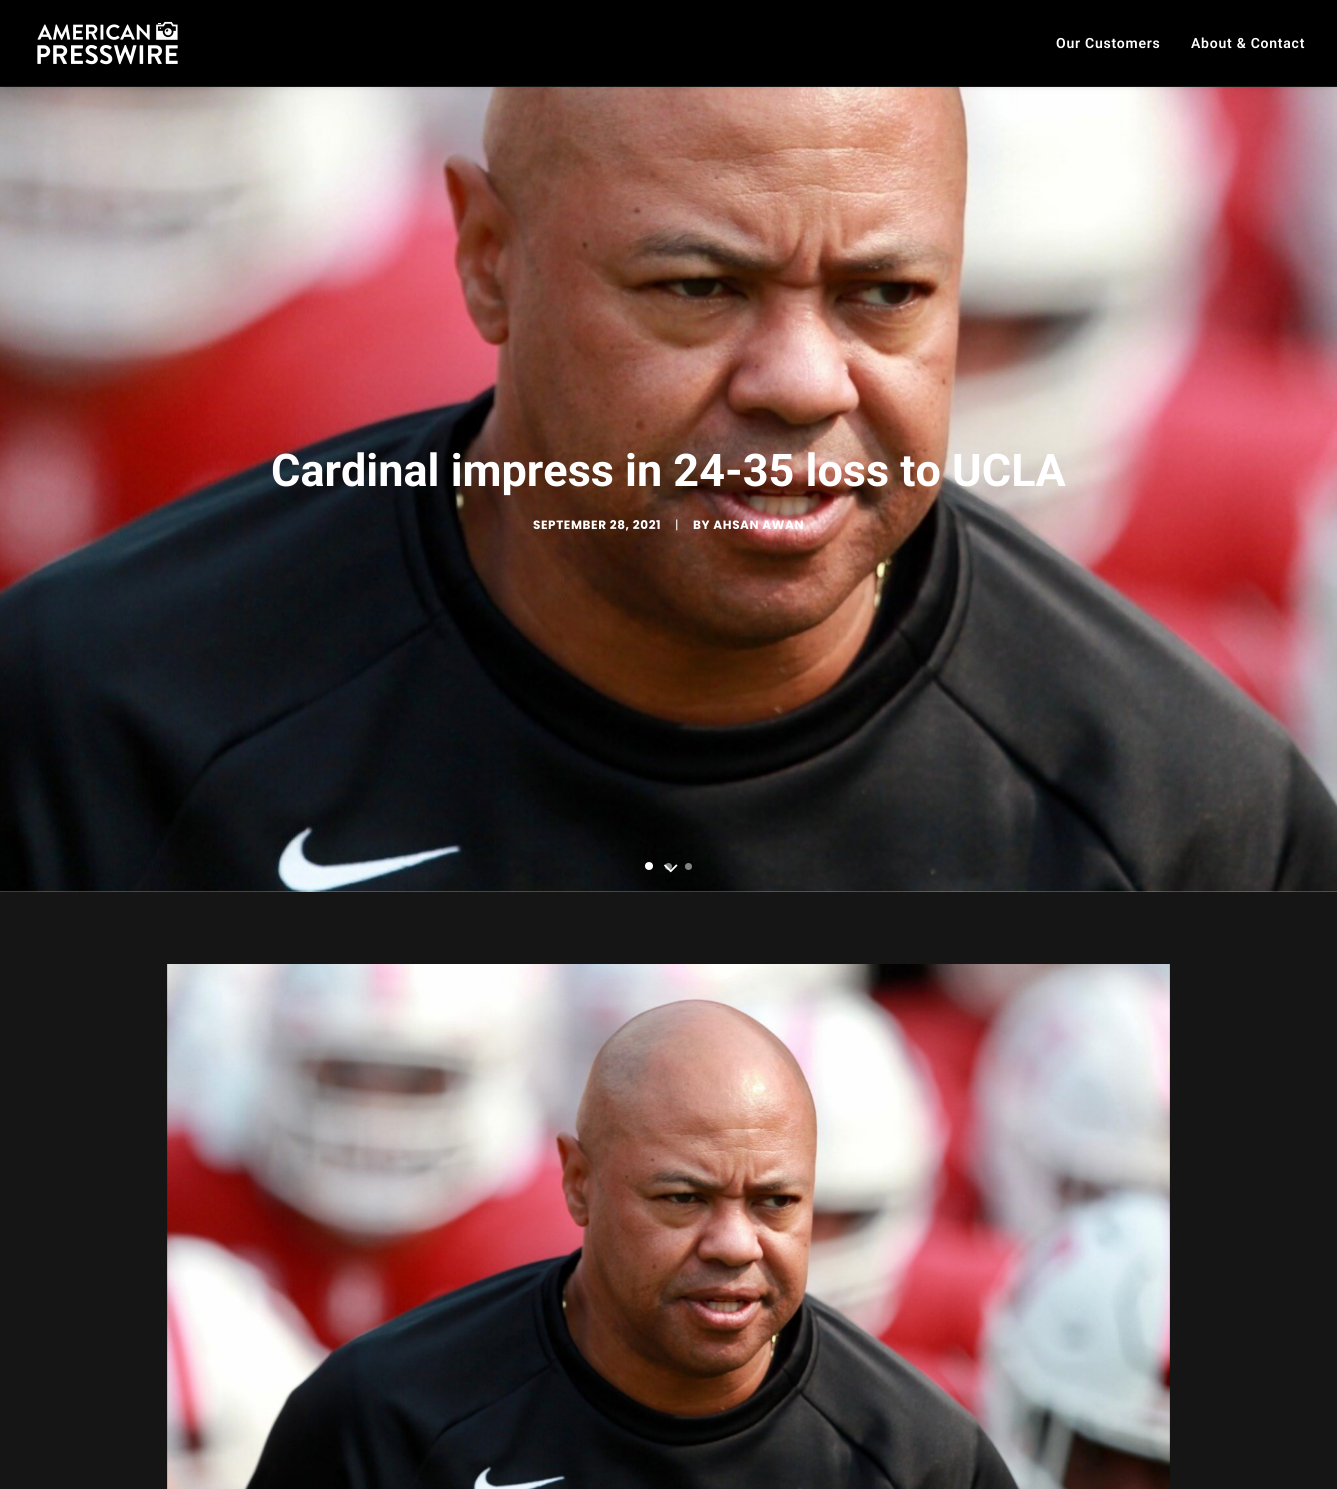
#include <cairo/cairo.h>
#include <math.h>
#include <stddef.h>


static void draw_spaced(cairo_t *cr, double x, double y, const char *s, double letter, double word) {
  cairo_move_to(cr, x, y);
  while (*s) {
    char ch[5] = {0};
    int n = 0;
    do ch[n++] = *s++; while ((*s & 0xC0) == 0x80);
    cairo_show_text(cr, ch);
    cairo_rel_move_to(cr, letter + word * (*ch == ' '), 0);
  }
}

static void rounded_rect(cairo_t *cr, double x, double y, double w, double h, double r) {
  cairo_new_sub_path(cr);
  cairo_arc(cr, x + w - r, y + h - r, r, 0, M_PI / 2);
  cairo_arc(cr, x + r, y + h - r, r, M_PI / 2, M_PI);
  cairo_arc(cr, x + r, y + r, r, M_PI, 1.5 * M_PI);
  cairo_arc(cr, x + w - r, y + r, r, 1.5 * M_PI, 2 * M_PI);
  cairo_close_path(cr);
}

static void draw_shadow(cairo_t *cr, double x, double y, double w, double h, double r, double blur, double alpha) {
  cairo_push_group_with_content(cr, CAIRO_CONTENT_ALPHA);
  cairo_set_operator(cr, CAIRO_OPERATOR_SOURCE);
  for (int i = 15; i >= -15 && fmin(w, h) + blur * i / 3 > 0; i -= 2) {
    double e = blur * i / 6;
    cairo_set_source_rgba(cr, 0, 0, 0, alpha * erfc((i - 1) / 8.5) / 2);
    rounded_rect(cr, x - e, y - e, w + 2 * e, h + 2 * e, fmax(0, fmin(r + e + blur * .6, fmin(w, h) / 2 + e)));
    cairo_fill(cr);
  }
  cairo_pattern_t *soft = cairo_pop_group(cr);
  cairo_mask(cr, soft);
  cairo_pattern_destroy(soft);
}

static void draw_image(cairo_t *cr, const char *path, double x, double y, double w, double h) {
  cairo_surface_t *image = cairo_image_surface_create_from_png(path);
  cairo_save(cr);
  cairo_set_source_surface(cr, image, x, y);
  cairo_rectangle(cr, x, y, w, h);
  cairo_fill(cr);
  cairo_restore(cr);
  cairo_surface_destroy(image);
}

static void draw(cairo_t *cr) {
  cairo_set_source_rgb(cr, 1, 1, 1);
  cairo_paint(cr);
  draw_image(cr, "images/2.png", 0, 87, 1337, 805);
  cairo_set_source_rgb(cr, 0, 0, 0);
  draw_shadow(cr, 7, 14, 1324, 67, 0, 5, 0.6);
  cairo_set_source_rgb(cr, 0, 0, 0);
  cairo_rectangle(cr, 0, 0, 1337, 86);
  cairo_fill(cr);
  cairo_set_source_rgb(cr, 21 / 255.0, 21 / 255.0, 21 / 255.0);
  cairo_rectangle(cr, 0, 86, 1337, 1);
  cairo_fill(cr);
  draw_image(cr, "images/1.png", 37, 21, 141, 44);
  cairo_set_source_rgb(cr, 1, 1, 1);
  cairo_arc(cr, 649, 866, 4, 0, 2 * M_PI);
  cairo_fill(cr);
  cairo_set_source_rgb(cr, 129 / 255.0, 130 / 255.0, 129 / 255.0);
  cairo_arc(cr, 668.5, 866.5, 3.5, 0, 2 * M_PI);
  cairo_fill(cr);
  cairo_set_source_rgba(cr, 1, 1, 1, 0.5);
  cairo_arc(cr, 688.5, 866.5, 3.5, 0, 2 * M_PI);
  cairo_fill(cr);
  draw_image(cr, "images/3.png", 664, 864, 14, 9);
  cairo_set_source_rgb(cr, 21 / 255.0, 21 / 255.0, 21 / 255.0);
  cairo_rectangle(cr, 0, 892, 1337, 597);
  cairo_fill(cr);
  draw_image(cr, "images/4.png", 167, 964, 1003, 525);
  cairo_select_font_face(cr, "Roboto SemiBold", CAIRO_FONT_SLANT_NORMAL, CAIRO_FONT_WEIGHT_NORMAL);
  cairo_set_font_size(cr, 14);
  cairo_set_source_rgb(cr, 1, 1, 1);
  draw_spaced(cr, 1056, 48, "Our Customers", 0.75, 0);
  draw_spaced(cr, 1191, 48, "About & Contact", 0.75, 0);
  cairo_select_font_face(cr, "Roboto", CAIRO_FONT_SLANT_NORMAL, CAIRO_FONT_WEIGHT_BOLD);
  cairo_set_font_size(cr, 45);
  cairo_move_to(cr, 271, 486);
  cairo_show_text(cr, "Cardinal impress in 24-35 loss to UCLA");
  cairo_select_font_face(cr, "Poppins", CAIRO_FONT_SLANT_NORMAL, CAIRO_FONT_WEIGHT_BOLD);
  cairo_set_font_size(cr, 12);
  draw_spaced(cr, 533, 529, "SEPTEMBER 28, 2021", 0.6, 0);
  cairo_select_font_face(cr, "Poppins", CAIRO_FONT_SLANT_NORMAL, CAIRO_FONT_WEIGHT_NORMAL);
  draw_spaced(cr, 675, 529, "|", 0.6, 0);
  cairo_select_font_face(cr, "Poppins", CAIRO_FONT_SLANT_NORMAL, CAIRO_FONT_WEIGHT_BOLD);
  draw_spaced(cr, 693, 529, "BY AHSAN AWAN", 0.6, 0);
}

int main(void) {
  cairo_surface_t *surface = cairo_image_surface_create(CAIRO_FORMAT_RGB24, 1337, 1489);
  cairo_t *cr = cairo_create(surface);
  cairo_font_options_t *options = cairo_font_options_create();
  cairo_font_options_set_hint_metrics(options, CAIRO_HINT_METRICS_OFF);
  cairo_font_options_set_hint_style(options, CAIRO_HINT_STYLE_NONE);
  cairo_set_font_options(cr, options);
  cairo_set_miter_limit(cr, 4);
  draw(cr);
  cairo_surface_write_to_png(surface, "out.png");
  cairo_font_options_destroy(options);
  cairo_destroy(cr);
  cairo_surface_destroy(surface);
  return 0;
}
